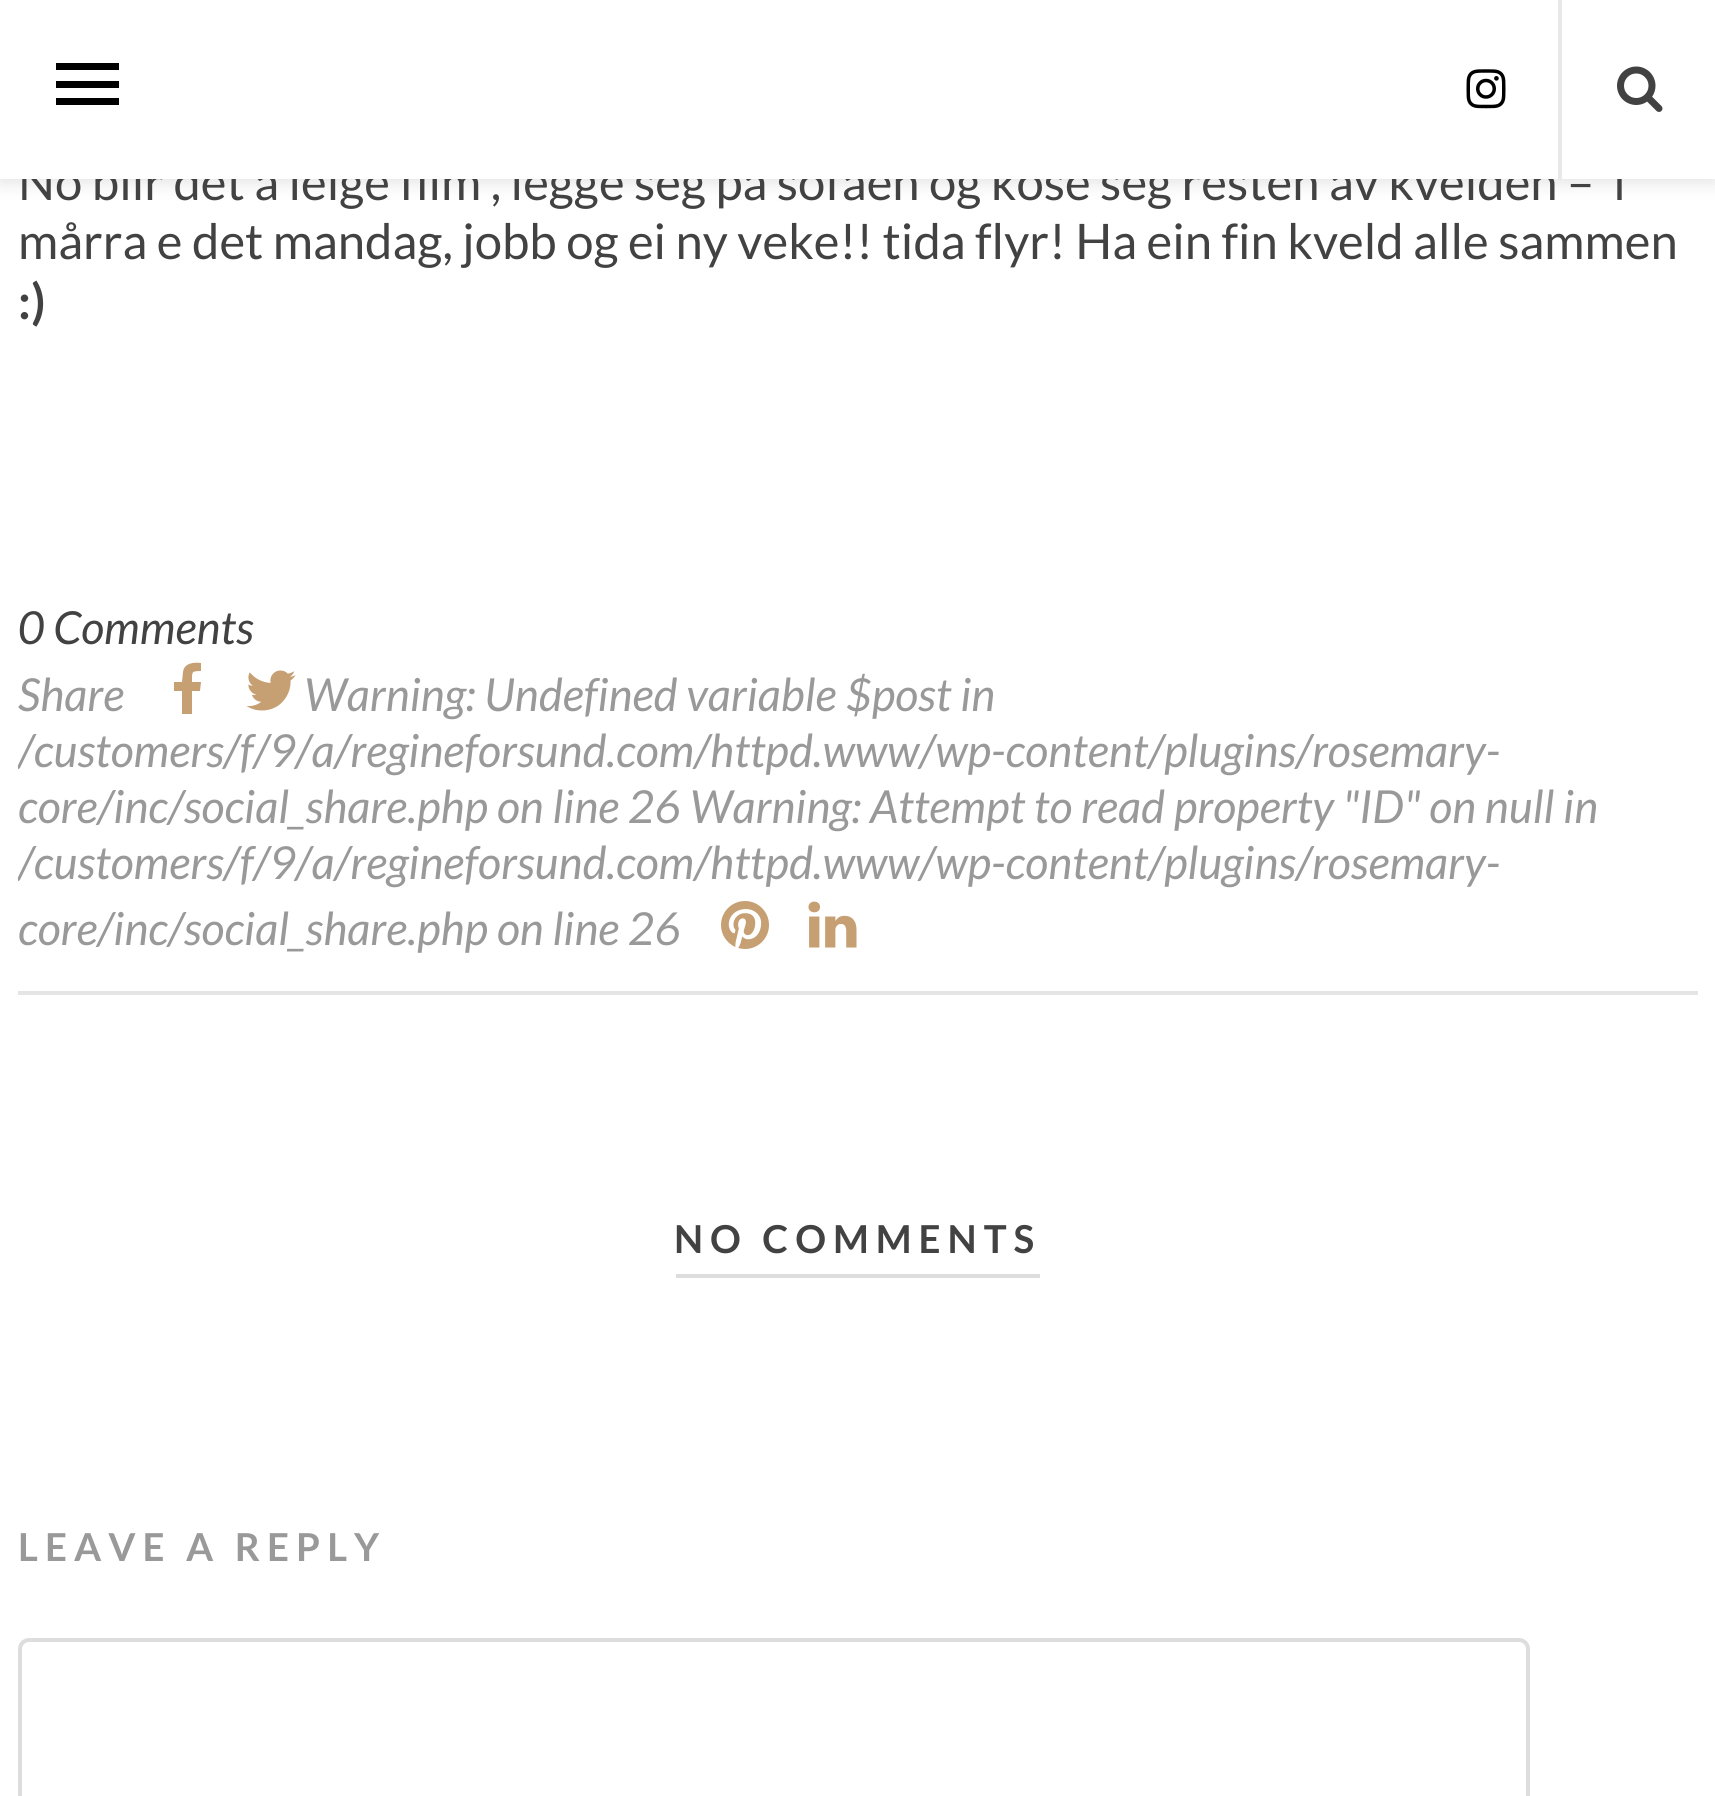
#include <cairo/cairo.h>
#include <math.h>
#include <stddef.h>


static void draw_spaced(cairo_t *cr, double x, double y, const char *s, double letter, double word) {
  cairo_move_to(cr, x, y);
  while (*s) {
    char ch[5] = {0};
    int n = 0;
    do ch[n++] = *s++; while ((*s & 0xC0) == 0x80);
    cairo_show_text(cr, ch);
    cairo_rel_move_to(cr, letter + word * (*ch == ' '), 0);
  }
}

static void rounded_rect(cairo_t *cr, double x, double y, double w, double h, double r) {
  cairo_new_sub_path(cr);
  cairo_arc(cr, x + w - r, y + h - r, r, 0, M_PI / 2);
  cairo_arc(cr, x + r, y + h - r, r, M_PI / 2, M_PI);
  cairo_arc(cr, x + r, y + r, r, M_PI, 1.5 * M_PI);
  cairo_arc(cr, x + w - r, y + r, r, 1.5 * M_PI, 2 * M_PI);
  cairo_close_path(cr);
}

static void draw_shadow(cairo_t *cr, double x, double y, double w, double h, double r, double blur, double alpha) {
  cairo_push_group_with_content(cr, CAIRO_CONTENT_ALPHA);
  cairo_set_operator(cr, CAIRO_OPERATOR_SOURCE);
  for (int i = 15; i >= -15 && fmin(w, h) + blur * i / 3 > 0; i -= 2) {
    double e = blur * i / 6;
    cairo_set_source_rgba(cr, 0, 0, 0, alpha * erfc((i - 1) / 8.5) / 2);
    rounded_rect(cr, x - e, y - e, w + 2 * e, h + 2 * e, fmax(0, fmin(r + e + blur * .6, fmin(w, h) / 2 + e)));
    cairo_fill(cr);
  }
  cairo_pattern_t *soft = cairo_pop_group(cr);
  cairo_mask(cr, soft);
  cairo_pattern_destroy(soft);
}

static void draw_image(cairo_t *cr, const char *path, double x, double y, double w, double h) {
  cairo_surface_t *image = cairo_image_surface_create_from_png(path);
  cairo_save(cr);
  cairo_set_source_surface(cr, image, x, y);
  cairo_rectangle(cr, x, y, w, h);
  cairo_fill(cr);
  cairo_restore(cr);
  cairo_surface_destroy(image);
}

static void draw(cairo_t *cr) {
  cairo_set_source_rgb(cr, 1, 1, 1);
  cairo_paint(cr);
  cairo_set_source_rgb(cr, 190 / 255.0, 190 / 255.0, 190 / 255.0);
  draw_shadow(cr, 0, 4, 1715, 178, 0, 9, 0.46);
  cairo_set_source_rgb(cr, 229 / 255.0, 229 / 255.0, 229 / 255.0);
  cairo_rectangle(cr, 18, 991, 1680, 4);
  cairo_fill(cr);
  cairo_set_source_rgb(cr, 198 / 255.0, 159 / 255.0, 115 / 255.0);
  cairo_new_path(cr);
  cairo_move_to(cr, 201, 663);
  cairo_line_to(cr, 201, 671);
  cairo_curve_to(cr, 191, 671, 192, 672, 192, 682);
  cairo_line_to(cr, 201, 682);
  cairo_line_to(cr, 200, 691);
  cairo_line_to(cr, 192, 691);
  cairo_line_to(cr, 192, 714);
  cairo_line_to(cr, 182, 714);
  cairo_line_to(cr, 182, 691);
  cairo_line_to(cr, 174, 691);
  cairo_line_to(cr, 174, 682);
  cairo_line_to(cr, 182, 682);
  cairo_line_to(cr, 183, 672);
  cairo_curve_to(cr, 184, 663, 194, 662, 201, 663);
  cairo_close_path(cr);
  cairo_fill(cr);
  draw_image(cr, "images/3.png", 246, 670, 50, 41);
  draw_image(cr, "images/4.png", 721, 901, 48, 48);
  draw_image(cr, "images/5.png", 808, 901, 49, 47);
  cairo_set_source_rgb(cr, 221 / 255.0, 221 / 255.0, 221 / 255.0);
  cairo_rectangle(cr, 676, 1274, 364, 4);
  cairo_fill(cr);
  rounded_rect(cr, 20, 1640, 1508, 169, 9);
  cairo_set_line_width(cr, 4);
  cairo_stroke(cr);
  cairo_select_font_face(cr, "Lato", CAIRO_FONT_SLANT_NORMAL, CAIRO_FONT_WEIGHT_NORMAL);
  cairo_set_font_size(cr, 49);
  cairo_set_source_rgb(cr, 66 / 255.0, 66 / 255.0, 66 / 255.0);
  cairo_move_to(cr, 18, 200);
  cairo_show_text(cr, "No blir det å leige film , legge seg på sofaen og kose seg resten av kvelden –  i");
  cairo_set_source_rgb(cr, 1, 1, 1);
  cairo_rectangle(cr, 0, 0, 1715, 179);
  cairo_fill(cr);
  draw_image(cr, "images/2.png", 1617, 66, 46, 46);
  cairo_set_source_rgb(cr, 232 / 255.0, 232 / 255.0, 232 / 255.0);
  cairo_rectangle(cr, 1558, 0, 4, 179);
  cairo_fill(cr);
  draw_image(cr, "images/1.png", 1466, 69, 40, 40);
  cairo_set_source_rgb(cr, 0, 0, 0);
  cairo_rectangle(cr, 56, 98, 63, 7);
  cairo_fill(cr);
  cairo_rectangle(cr, 56, 81, 63, 7);
  cairo_fill(cr);
  cairo_rectangle(cr, 56, 63, 63, 7);
  cairo_fill(cr);
  cairo_set_source_rgb(cr, 66 / 255.0, 66 / 255.0, 66 / 255.0);
  cairo_move_to(cr, 18, 259);
  cairo_show_text(cr, "mårra e det mandag, jobb og ei ny veke!! tida flyr! Ha ein fin kveld alle sammen");
  cairo_select_font_face(cr, "Lato", CAIRO_FONT_SLANT_NORMAL, CAIRO_FONT_WEIGHT_BOLD);
  cairo_move_to(cr, 18, 319);
  cairo_show_text(cr, ":)");
  cairo_select_font_face(cr, "Lato", CAIRO_FONT_SLANT_ITALIC, CAIRO_FONT_WEIGHT_NORMAL);
  cairo_set_font_size(cr, 45.5);
  cairo_move_to(cr, 18, 644);
  cairo_show_text(cr, "0 Comments");
  cairo_set_source_rgb(cr, 153 / 255.0, 153 / 255.0, 153 / 255.0);
  cairo_move_to(cr, 18, 711);
  cairo_show_text(cr, "Share");
  cairo_move_to(cr, 304, 711);
  cairo_show_text(cr, "Warning: Undefined variable $post in");
  cairo_save(cr);
  cairo_rectangle(cr, 18, 595, 1680, 396);
  cairo_clip(cr);
  cairo_move_to(cr, 18, 767);
  cairo_show_text(cr, "/customers/f/9/a/regineforsund.com/httpd.www/wp-content/plugins/rosemary-");
  cairo_restore(cr);
  cairo_move_to(cr, 18, 823);
  cairo_show_text(cr, "core/inc/social_share.php on line 26 Warning: Attempt to read property \"ID\" on null in");
  cairo_save(cr);
  cairo_rectangle(cr, 18, 595, 1680, 396);
  cairo_clip(cr);
  cairo_move_to(cr, 18, 879);
  cairo_show_text(cr, "/customers/f/9/a/regineforsund.com/httpd.www/wp-content/plugins/rosemary-");
  cairo_restore(cr);
  cairo_move_to(cr, 18, 945);
  cairo_show_text(cr, "core/inc/social_share.php on line 26");
  cairo_select_font_face(cr, "Lato", CAIRO_FONT_SLANT_NORMAL, CAIRO_FONT_WEIGHT_BOLD);
  cairo_set_font_size(cr, 38.5);
  cairo_set_source_rgb(cr, 66 / 255.0, 66 / 255.0, 66 / 255.0);
  draw_spaced(cr, 674, 1253, "NO COMMENTS", 7, 0);
  cairo_set_source_rgb(cr, 153 / 255.0, 153 / 255.0, 153 / 255.0);
  draw_spaced(cr, 18, 1561, "LEAVE A REPLY", 7, 0);
}

int main(void) {
  cairo_surface_t *surface = cairo_image_surface_create(CAIRO_FORMAT_RGB24, 1715, 1796);
  cairo_t *cr = cairo_create(surface);
  cairo_font_options_t *options = cairo_font_options_create();
  cairo_font_options_set_hint_metrics(options, CAIRO_HINT_METRICS_OFF);
  cairo_font_options_set_hint_style(options, CAIRO_HINT_STYLE_NONE);
  cairo_set_font_options(cr, options);
  cairo_set_miter_limit(cr, 4);
  draw(cr);
  cairo_surface_write_to_png(surface, "out.png");
  cairo_font_options_destroy(options);
  cairo_destroy(cr);
  cairo_surface_destroy(surface);
  return 0;
}
